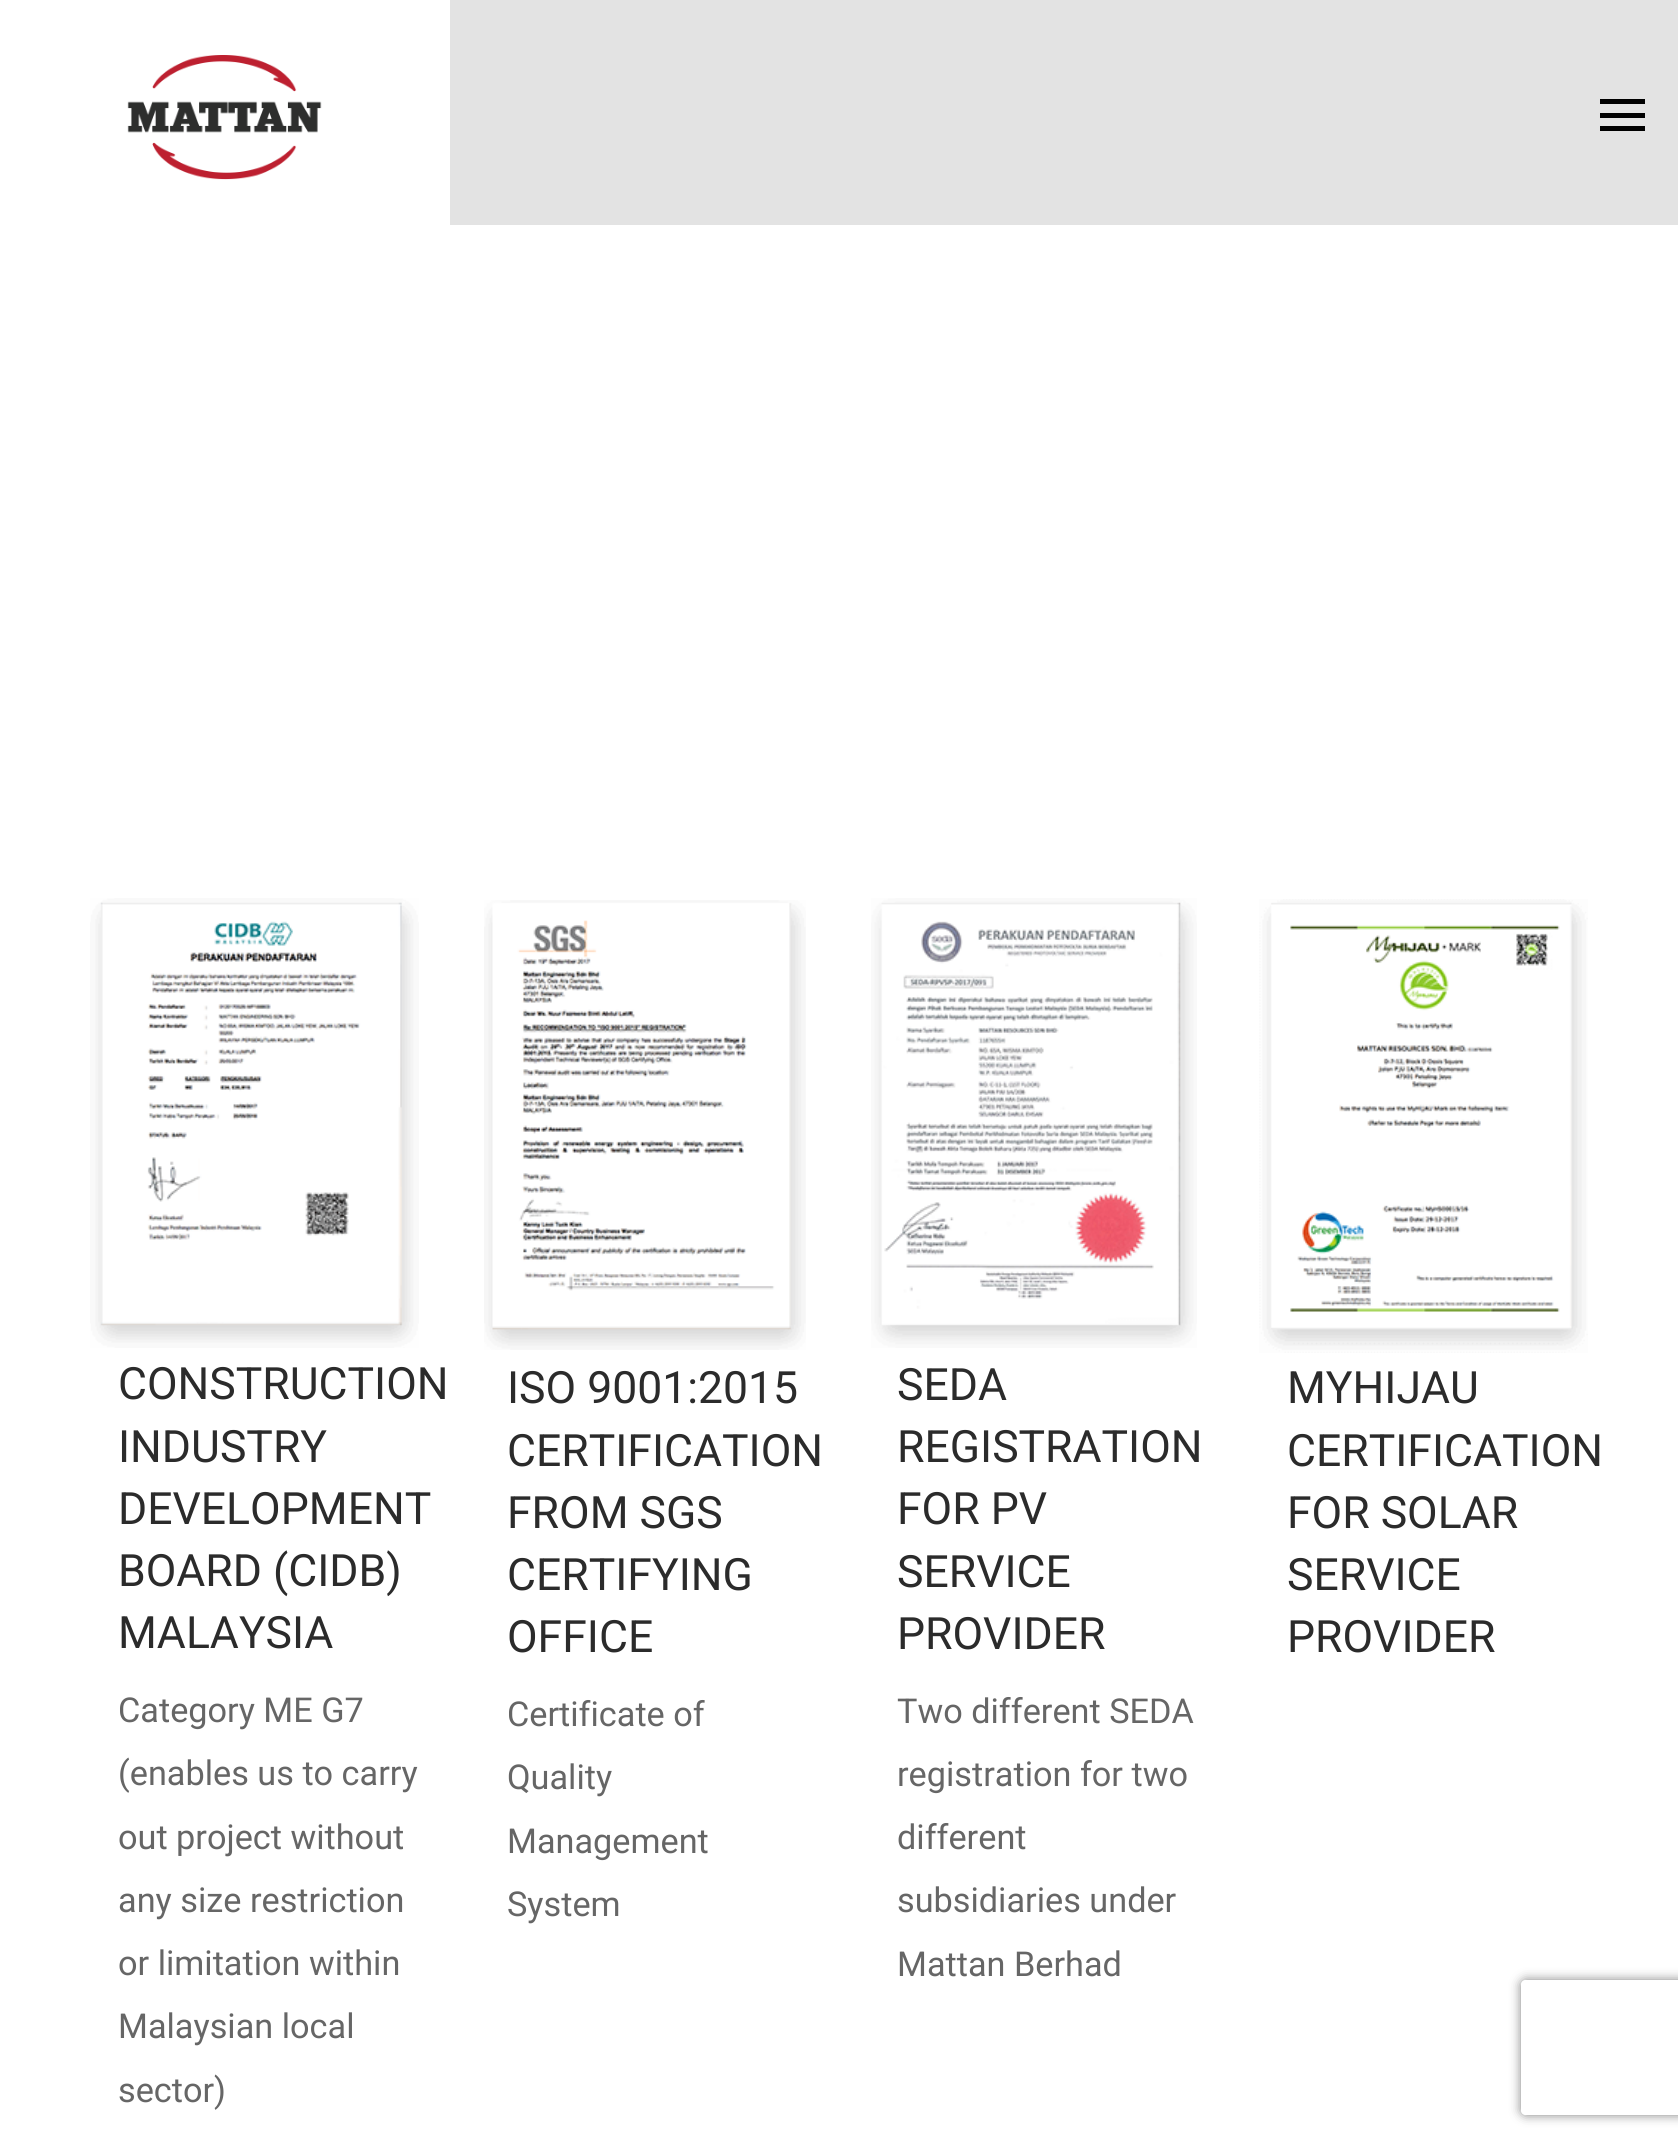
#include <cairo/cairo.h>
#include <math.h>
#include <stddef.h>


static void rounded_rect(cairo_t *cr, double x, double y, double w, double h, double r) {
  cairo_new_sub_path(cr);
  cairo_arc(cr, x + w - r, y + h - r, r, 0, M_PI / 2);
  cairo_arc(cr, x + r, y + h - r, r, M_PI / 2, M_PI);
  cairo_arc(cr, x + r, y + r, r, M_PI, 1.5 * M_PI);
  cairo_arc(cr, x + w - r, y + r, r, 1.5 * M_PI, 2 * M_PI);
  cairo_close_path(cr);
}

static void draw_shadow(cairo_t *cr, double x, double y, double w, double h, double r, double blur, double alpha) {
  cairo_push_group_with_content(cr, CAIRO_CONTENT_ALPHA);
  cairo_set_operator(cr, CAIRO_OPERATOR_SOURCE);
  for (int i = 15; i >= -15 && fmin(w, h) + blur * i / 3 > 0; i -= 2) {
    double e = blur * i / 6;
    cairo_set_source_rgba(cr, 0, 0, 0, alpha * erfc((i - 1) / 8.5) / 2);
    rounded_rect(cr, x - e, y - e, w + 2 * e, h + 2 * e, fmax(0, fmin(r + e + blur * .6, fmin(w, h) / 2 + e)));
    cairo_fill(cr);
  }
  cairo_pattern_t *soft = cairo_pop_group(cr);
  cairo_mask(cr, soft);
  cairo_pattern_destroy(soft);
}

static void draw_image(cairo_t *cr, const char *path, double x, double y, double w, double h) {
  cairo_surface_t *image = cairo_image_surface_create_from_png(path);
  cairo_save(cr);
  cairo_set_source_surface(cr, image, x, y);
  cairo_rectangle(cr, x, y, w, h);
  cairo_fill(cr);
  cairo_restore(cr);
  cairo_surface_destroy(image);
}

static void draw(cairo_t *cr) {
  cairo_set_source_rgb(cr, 1, 1, 1);
  cairo_paint(cr);
  cairo_set_source_rgb(cr, 227 / 255.0, 227 / 255.0, 227 / 255.0);
  cairo_rectangle(cr, 450, 0, 1228, 225);
  cairo_fill(cr);
  draw_image(cr, "images/1.png", 127, 55, 195, 125);
  cairo_set_source_rgb(cr, 0, 0, 0);
  cairo_rectangle(cr, 1600, 126, 45, 5);
  cairo_fill(cr);
  cairo_rectangle(cr, 1600, 99, 45, 5);
  cairo_fill(cr);
  cairo_rectangle(cr, 1600, 113, 45, 5);
  cairo_fill(cr);
  draw_image(cr, "images/2.png", 90, 898, 329, 450);
  draw_image(cr, "images/3.png", 484, 900, 322, 450);
  draw_image(cr, "images/4.png", 871, 898, 326, 450);
  draw_image(cr, "images/5.png", 1259, 899, 329, 454);
  cairo_save(cr);
  cairo_set_fill_rule(cr, CAIRO_FILL_RULE_EVEN_ODD);
  cairo_new_path(cr);
  cairo_move_to(cr, 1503, 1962);
  cairo_line_to(cr, 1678, 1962);
  cairo_line_to(cr, 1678, 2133);
  cairo_line_to(cr, 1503, 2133);
  cairo_close_path(cr);
  cairo_move_to(cr, 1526, 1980);
  cairo_line_to(cr, 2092, 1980);
  cairo_curve_to(cr, 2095, 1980, 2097, 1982, 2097, 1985);
  cairo_line_to(cr, 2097, 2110);
  cairo_curve_to(cr, 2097, 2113, 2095, 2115, 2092, 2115);
  cairo_line_to(cr, 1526, 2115);
  cairo_curve_to(cr, 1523, 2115, 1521, 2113, 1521, 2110);
  cairo_line_to(cr, 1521, 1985);
  cairo_curve_to(cr, 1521, 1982, 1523, 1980, 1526, 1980);
  cairo_close_path(cr);
  cairo_clip(cr);
  cairo_set_source_rgb(cr, 128 / 255.0, 128 / 255.0, 128 / 255.0);
  draw_shadow(cr, 1521, 1980, 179, 135, 5, 5.5, 1);
  cairo_restore(cr);
  cairo_select_font_face(cr, "Roboto", CAIRO_FONT_SLANT_NORMAL, CAIRO_FONT_WEIGHT_NORMAL);
  cairo_set_font_size(cr, 44.5);
  cairo_set_source_rgb(cr, 43 / 255.0, 43 / 255.0, 43 / 255.0);
  cairo_move_to(cr, 118, 1399);
  cairo_show_text(cr, "CONSTRUCTION");
  cairo_move_to(cr, 118, 1462);
  cairo_show_text(cr, "INDUSTRY");
  cairo_move_to(cr, 118, 1524);
  cairo_show_text(cr, "DEVELOPMENT");
  cairo_move_to(cr, 118, 1586);
  cairo_show_text(cr, "BOARD (CIDB)");
  cairo_move_to(cr, 118, 1648);
  cairo_show_text(cr, "MALAYSIA");
  cairo_set_font_size(cr, 34.25);
  cairo_set_source_rgb(cr, 102 / 255.0, 102 / 255.0, 102 / 255.0);
  cairo_move_to(cr, 118, 1722);
  cairo_show_text(cr, "Category ME G7");
  cairo_move_to(cr, 118, 1785);
  cairo_show_text(cr, "(enables us to carry");
  cairo_move_to(cr, 118, 1849);
  cairo_show_text(cr, "out project without");
  cairo_move_to(cr, 118, 1912);
  cairo_show_text(cr, "any size restriction");
  cairo_move_to(cr, 118, 1975);
  cairo_show_text(cr, "or limitation within");
  cairo_move_to(cr, 118, 2038);
  cairo_show_text(cr, "Malaysian local");
  cairo_move_to(cr, 118, 2102);
  cairo_show_text(cr, "sector)");
  cairo_set_font_size(cr, 44.5);
  cairo_set_source_rgb(cr, 43 / 255.0, 43 / 255.0, 43 / 255.0);
  cairo_move_to(cr, 507, 1403);
  cairo_show_text(cr, "ISO 9001:2015");
  cairo_move_to(cr, 507, 1466);
  cairo_show_text(cr, "CERTIFICATION");
  cairo_move_to(cr, 507, 1528);
  cairo_show_text(cr, "FROM SGS");
  cairo_move_to(cr, 507, 1590);
  cairo_show_text(cr, "CERTIFYING");
  cairo_move_to(cr, 507, 1652);
  cairo_show_text(cr, "OFFICE");
  cairo_set_font_size(cr, 34.25);
  cairo_set_source_rgb(cr, 102 / 255.0, 102 / 255.0, 102 / 255.0);
  cairo_move_to(cr, 507, 1726);
  cairo_show_text(cr, "Certificate of");
  cairo_move_to(cr, 507, 1789);
  cairo_show_text(cr, "Quality");
  cairo_move_to(cr, 507, 1853);
  cairo_show_text(cr, "Management");
  cairo_move_to(cr, 507, 1916);
  cairo_show_text(cr, "System");
  cairo_set_font_size(cr, 44.5);
  cairo_set_source_rgb(cr, 43 / 255.0, 43 / 255.0, 43 / 255.0);
  cairo_move_to(cr, 897, 1400);
  cairo_show_text(cr, "SEDA");
  cairo_move_to(cr, 897, 1462);
  cairo_show_text(cr, "REGISTRATION");
  cairo_move_to(cr, 897, 1524);
  cairo_show_text(cr, "FOR PV");
  cairo_move_to(cr, 897, 1587);
  cairo_show_text(cr, "SERVICE");
  cairo_move_to(cr, 897, 1649);
  cairo_show_text(cr, "PROVIDER");
  cairo_set_font_size(cr, 34.25);
  cairo_set_source_rgb(cr, 102 / 255.0, 102 / 255.0, 102 / 255.0);
  cairo_move_to(cr, 897, 1723);
  cairo_show_text(cr, "Two different SEDA");
  cairo_move_to(cr, 897, 1786);
  cairo_show_text(cr, "registration for two");
  cairo_move_to(cr, 897, 1849);
  cairo_show_text(cr, "different");
  cairo_move_to(cr, 897, 1912);
  cairo_show_text(cr, "subsidiaries under");
  cairo_move_to(cr, 897, 1976);
  cairo_show_text(cr, "Mattan Berhad");
  cairo_set_font_size(cr, 44.5);
  cairo_set_source_rgb(cr, 43 / 255.0, 43 / 255.0, 43 / 255.0);
  cairo_move_to(cr, 1287, 1403);
  cairo_show_text(cr, "MYHIJAU");
  cairo_move_to(cr, 1287, 1466);
  cairo_show_text(cr, "CERTIFICATION");
  cairo_move_to(cr, 1287, 1528);
  cairo_show_text(cr, "FOR SOLAR");
  cairo_move_to(cr, 1287, 1590);
  cairo_show_text(cr, "SERVICE");
  cairo_move_to(cr, 1287, 1652);
  cairo_show_text(cr, "PROVIDER");
}

int main(void) {
  cairo_surface_t *surface = cairo_image_surface_create(CAIRO_FORMAT_RGB24, 1678, 2146);
  cairo_t *cr = cairo_create(surface);
  cairo_font_options_t *options = cairo_font_options_create();
  cairo_font_options_set_hint_metrics(options, CAIRO_HINT_METRICS_OFF);
  cairo_font_options_set_hint_style(options, CAIRO_HINT_STYLE_NONE);
  cairo_set_font_options(cr, options);
  cairo_set_miter_limit(cr, 4);
  draw(cr);
  cairo_surface_write_to_png(surface, "out.png");
  cairo_font_options_destroy(options);
  cairo_destroy(cr);
  cairo_surface_destroy(surface);
  return 0;
}
